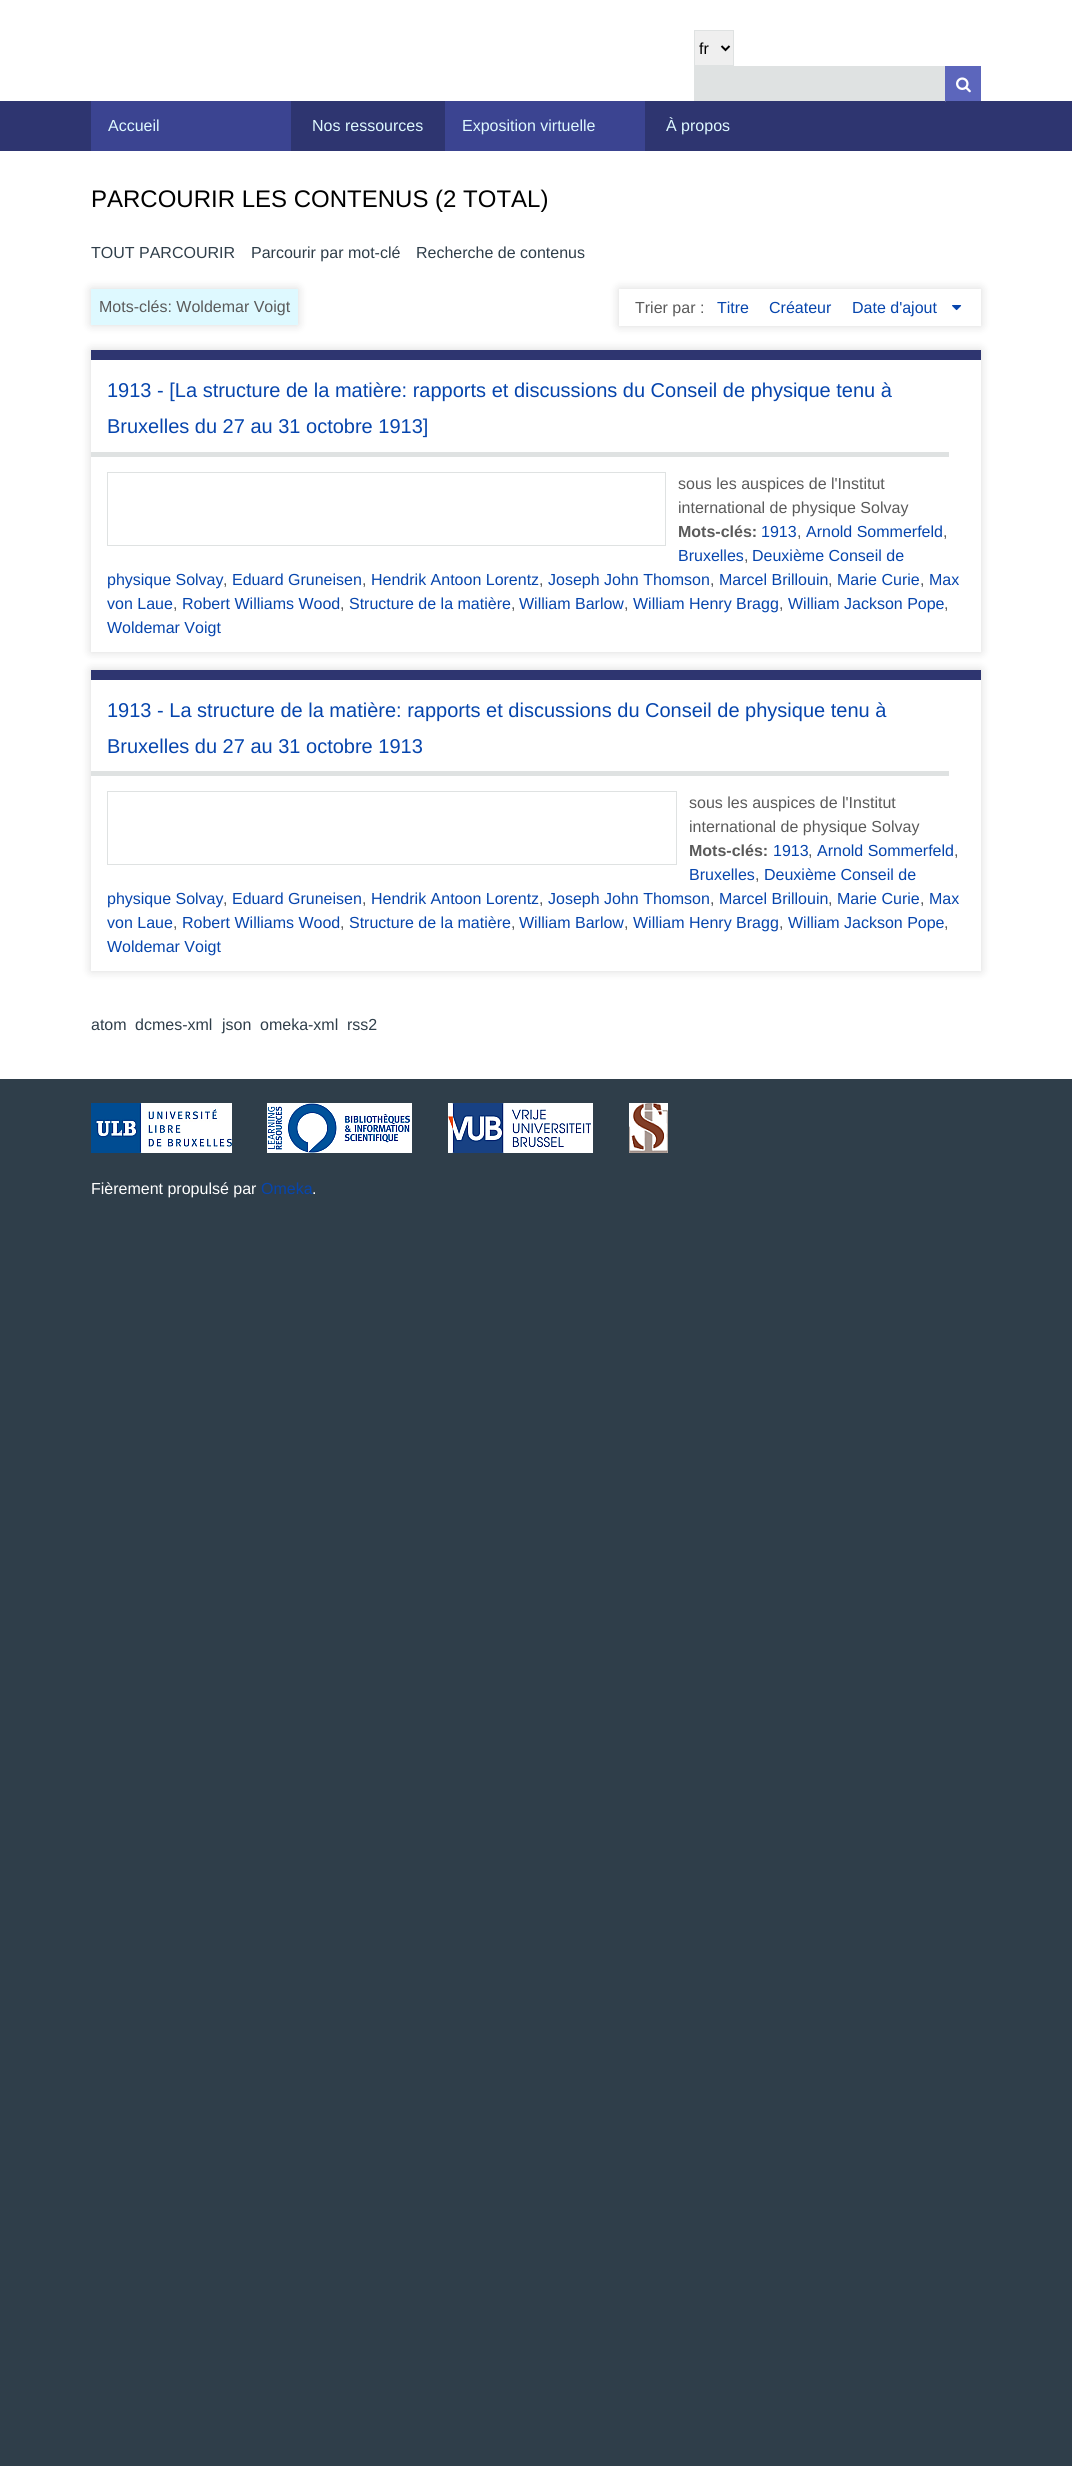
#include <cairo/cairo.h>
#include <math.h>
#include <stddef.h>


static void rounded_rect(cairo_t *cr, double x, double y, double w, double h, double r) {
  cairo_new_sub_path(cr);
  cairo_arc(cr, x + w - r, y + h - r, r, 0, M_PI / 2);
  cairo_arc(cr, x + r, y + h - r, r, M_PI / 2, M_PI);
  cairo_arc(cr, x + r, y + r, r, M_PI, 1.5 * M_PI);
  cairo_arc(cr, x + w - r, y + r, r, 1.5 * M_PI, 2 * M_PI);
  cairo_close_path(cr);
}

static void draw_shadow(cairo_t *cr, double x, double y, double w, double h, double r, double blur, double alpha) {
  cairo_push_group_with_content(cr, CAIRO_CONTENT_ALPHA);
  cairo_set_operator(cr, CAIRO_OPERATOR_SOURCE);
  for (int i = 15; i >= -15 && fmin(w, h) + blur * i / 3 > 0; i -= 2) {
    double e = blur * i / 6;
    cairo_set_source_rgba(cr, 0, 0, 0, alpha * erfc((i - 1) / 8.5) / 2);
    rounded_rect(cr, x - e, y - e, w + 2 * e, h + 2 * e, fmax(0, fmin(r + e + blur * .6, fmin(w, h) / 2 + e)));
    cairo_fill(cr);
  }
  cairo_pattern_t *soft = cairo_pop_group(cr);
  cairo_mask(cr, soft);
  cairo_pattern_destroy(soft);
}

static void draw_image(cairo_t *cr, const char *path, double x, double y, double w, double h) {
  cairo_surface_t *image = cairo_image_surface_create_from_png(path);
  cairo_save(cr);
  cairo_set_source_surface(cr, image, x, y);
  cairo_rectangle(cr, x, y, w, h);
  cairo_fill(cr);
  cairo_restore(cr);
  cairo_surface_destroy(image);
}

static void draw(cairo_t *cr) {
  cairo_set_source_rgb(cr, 47 / 255.0, 62 / 255.0, 74 / 255.0);
  cairo_paint(cr);
  cairo_set_source_rgb(cr, 1, 1, 1);
  cairo_rectangle(cr, 0, 0, 1072, 101);
  cairo_fill(cr);
  cairo_set_source_rgb(cr, 239 / 255.0, 239 / 255.0, 239 / 255.0);
  cairo_rectangle(cr, 694.5, 30.5, 39, 35);
  cairo_fill_preserve(cr);
  cairo_set_source_rgb(cr, 223 / 255.0, 226 / 255.0, 226 / 255.0);
  cairo_set_line_width(cr, 1);
  cairo_stroke(cr);
  cairo_new_path(cr);
  cairo_move_to(cr, 721.5, 46);
  cairo_line_to(cr, 725.5, 50);
  cairo_line_to(cr, 729.5, 46);
  cairo_set_source_rgb(cr, 0, 0, 0);
  cairo_set_line_width(cr, 2);
  cairo_stroke(cr);
  cairo_set_source_rgb(cr, 223 / 255.0, 226 / 255.0, 226 / 255.0);
  cairo_rectangle(cr, 694, 66, 251, 35);
  cairo_fill(cr);
  cairo_set_source_rgb(cr, 92 / 255.0, 102 / 255.0, 188 / 255.0);
  cairo_rectangle(cr, 945, 66, 36, 35);
  cairo_fill(cr);
  draw_image(cr, "images/1.png", 956, 77, 15, 16);
  cairo_set_source_rgb(cr, 46 / 255.0, 53 / 255.0, 112 / 255.0);
  cairo_rectangle(cr, 0, 101, 1072, 50);
  cairo_fill(cr);
  cairo_set_source_rgb(cr, 88 / 255.0, 93 / 255.0, 141 / 255.0);
  cairo_rectangle(cr, 945, 101, 1, 1);
  cairo_fill(cr);
  cairo_set_source_rgb(cr, 59 / 255.0, 68 / 255.0, 145 / 255.0);
  cairo_rectangle(cr, 91, 101, 200, 50);
  cairo_fill(cr);
  cairo_rectangle(cr, 445, 101, 200, 50);
  cairo_fill(cr);
  cairo_set_source_rgb(cr, 1, 1, 1);
  cairo_rectangle(cr, 0, 151, 1072, 928);
  cairo_fill(cr);
  cairo_set_source_rgb(cr, 0, 0, 0);
  draw_shadow(cr, 91, 289, 207, 36, 0, 5, 0.15);
  cairo_set_source_rgb(cr, 222 / 255.0, 249 / 255.0, 1);
  cairo_rectangle(cr, 91, 289, 207, 36);
  cairo_fill(cr);
  cairo_save(cr);
  cairo_set_fill_rule(cr, CAIRO_FILL_RULE_EVEN_ODD);
  cairo_new_path(cr);
  cairo_move_to(cr, 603, 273);
  cairo_line_to(cr, 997, 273);
  cairo_line_to(cr, 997, 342);
  cairo_line_to(cr, 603, 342);
  cairo_close_path(cr);
  cairo_move_to(cr, 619, 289);
  cairo_line_to(cr, 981, 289);
  cairo_line_to(cr, 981, 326);
  cairo_line_to(cr, 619, 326);
  cairo_close_path(cr);
  cairo_clip(cr);
  cairo_set_source_rgb(cr, 0, 0, 0);
  draw_shadow(cr, 619, 289, 362, 37, 0, 5, 0.15);
  cairo_restore(cr);
  draw_image(cr, "images/2.png", 952, 305, 10, 6);
  cairo_save(cr);
  cairo_set_fill_rule(cr, CAIRO_FILL_RULE_EVEN_ODD);
  cairo_new_path(cr);
  cairo_move_to(cr, 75, 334);
  cairo_line_to(cr, 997, 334);
  cairo_line_to(cr, 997, 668);
  cairo_line_to(cr, 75, 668);
  cairo_close_path(cr);
  cairo_move_to(cr, 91, 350);
  cairo_line_to(cr, 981, 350);
  cairo_line_to(cr, 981, 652);
  cairo_line_to(cr, 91, 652);
  cairo_close_path(cr);
  cairo_clip(cr);
  cairo_set_source_rgb(cr, 0, 0, 0);
  draw_shadow(cr, 91, 350, 890, 302, 0, 5, 0.15);
  cairo_restore(cr);
  cairo_set_source_rgb(cr, 46 / 255.0, 53 / 255.0, 112 / 255.0);
  cairo_rectangle(cr, 91, 350, 890, 10);
  cairo_fill(cr);
  cairo_set_source_rgb(cr, 223 / 255.0, 226 / 255.0, 226 / 255.0);
  cairo_rectangle(cr, 91, 452, 858, 5);
  cairo_fill(cr);
  cairo_rectangle(cr, 107.5, 472.5, 558, 73);
  cairo_set_line_width(cr, 1);
  cairo_stroke(cr);
  cairo_save(cr);
  cairo_set_fill_rule(cr, CAIRO_FILL_RULE_EVEN_ODD);
  cairo_new_path(cr);
  cairo_move_to(cr, 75, 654);
  cairo_line_to(cr, 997, 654);
  cairo_line_to(cr, 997, 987);
  cairo_line_to(cr, 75, 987);
  cairo_close_path(cr);
  cairo_move_to(cr, 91, 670);
  cairo_line_to(cr, 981, 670);
  cairo_line_to(cr, 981, 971);
  cairo_line_to(cr, 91, 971);
  cairo_close_path(cr);
  cairo_clip(cr);
  cairo_set_source_rgb(cr, 0, 0, 0);
  draw_shadow(cr, 91, 670, 890, 301, 0, 5, 0.15);
  cairo_restore(cr);
  cairo_set_source_rgb(cr, 46 / 255.0, 53 / 255.0, 112 / 255.0);
  cairo_rectangle(cr, 91, 670, 890, 10);
  cairo_fill(cr);
  cairo_set_source_rgb(cr, 223 / 255.0, 226 / 255.0, 226 / 255.0);
  cairo_rectangle(cr, 91, 771, 858, 5);
  cairo_fill(cr);
  cairo_rectangle(cr, 107.5, 791.5, 569, 73);
  cairo_stroke(cr);
  draw_image(cr, "images/3.png", 91, 1103, 141, 50);
  draw_image(cr, "images/4.png", 267, 1103, 145, 50);
  draw_image(cr, "images/5.png", 448, 1103, 145, 50);
  draw_image(cr, "images/6.png", 629, 1103, 39, 50);
  cairo_select_font_face(cr, "Liberation Sans", CAIRO_FONT_SLANT_NORMAL, CAIRO_FONT_WEIGHT_NORMAL);
  cairo_set_font_size(cr, 16);
  cairo_set_source_rgb(cr, 0, 0, 0);
  cairo_move_to(cr, 699, 54);
  cairo_show_text(cr, "fr");
  cairo_set_source_rgb(cr, 222 / 255.0, 249 / 255.0, 1);
  cairo_move_to(cr, 108, 131);
  cairo_show_text(cr, "Accueil");
  cairo_move_to(cr, 312, 131);
  cairo_show_text(cr, "Nos ressources");
  cairo_move_to(cr, 462, 131);
  cairo_show_text(cr, "Exposition virtuelle");
  cairo_move_to(cr, 666, 131);
  cairo_show_text(cr, "À propos");
  cairo_set_font_size(cr, 24);
  cairo_set_source_rgb(cr, 0, 0, 0);
  cairo_move_to(cr, 91, 207);
  cairo_show_text(cr, "PARCOURIR LES CONTENUS (2 TOTAL)");
  cairo_set_font_size(cr, 16);
  cairo_set_source_rgb(cr, 47 / 255.0, 62 / 255.0, 74 / 255.0);
  cairo_move_to(cr, 91, 258);
  cairo_show_text(cr, "TOUT PARCOURIR");
  cairo_move_to(cr, 251, 258);
  cairo_show_text(cr, "Parcourir par mot-clé");
  cairo_move_to(cr, 416, 258);
  cairo_show_text(cr, "Recherche de contenus");
  cairo_set_source_rgb(cr, 90 / 255.0, 90 / 255.0, 90 / 255.0);
  cairo_move_to(cr, 99, 312);
  cairo_show_text(cr, "Mots-clés: Woldemar Voigt");
  cairo_move_to(cr, 635, 313);
  cairo_show_text(cr, "Trier par :");
  cairo_set_source_rgb(cr, 6 / 255.0, 69 / 255.0, 173 / 255.0);
  cairo_move_to(cr, 717, 313);
  cairo_show_text(cr, "Titre");
  cairo_move_to(cr, 769, 313);
  cairo_show_text(cr, "Créateur");
  cairo_move_to(cr, 852, 313);
  cairo_show_text(cr, "Date d'ajout");
  cairo_set_font_size(cr, 20);
  cairo_move_to(cr, 107, 397);
  cairo_show_text(cr, "1913 - [La structure de la matière: rapports et discussions du Conseil de physique tenu à");
  cairo_move_to(cr, 107, 433);
  cairo_show_text(cr, "Bruxelles du 27 au 31 octobre 1913]");
  cairo_set_font_size(cr, 16);
  cairo_set_source_rgb(cr, 90 / 255.0, 90 / 255.0, 90 / 255.0);
  cairo_move_to(cr, 678, 489);
  cairo_show_text(cr, "sous les auspices de l'Institut");
  cairo_move_to(cr, 678, 513);
  cairo_show_text(cr, "international de physique Solvay");
  cairo_select_font_face(cr, "Liberation Sans", CAIRO_FONT_SLANT_NORMAL, CAIRO_FONT_WEIGHT_BOLD);
  cairo_move_to(cr, 678, 537);
  cairo_show_text(cr, "Mots-clés:");
  cairo_select_font_face(cr, "Liberation Sans", CAIRO_FONT_SLANT_NORMAL, CAIRO_FONT_WEIGHT_NORMAL);
  cairo_set_source_rgb(cr, 6 / 255.0, 69 / 255.0, 173 / 255.0);
  cairo_move_to(cr, 761, 537);
  cairo_show_text(cr, "1913");
  cairo_set_source_rgb(cr, 90 / 255.0, 90 / 255.0, 90 / 255.0);
  cairo_move_to(cr, 797, 537);
  cairo_show_text(cr, ",");
  cairo_set_source_rgb(cr, 6 / 255.0, 69 / 255.0, 173 / 255.0);
  cairo_move_to(cr, 806, 537);
  cairo_show_text(cr, "Arnold Sommerfeld");
  cairo_set_source_rgb(cr, 90 / 255.0, 90 / 255.0, 90 / 255.0);
  cairo_move_to(cr, 943, 537);
  cairo_show_text(cr, ",");
  cairo_set_source_rgb(cr, 6 / 255.0, 69 / 255.0, 173 / 255.0);
  cairo_move_to(cr, 678, 561);
  cairo_show_text(cr, "Bruxelles");
  cairo_set_source_rgb(cr, 90 / 255.0, 90 / 255.0, 90 / 255.0);
  cairo_move_to(cr, 744, 561);
  cairo_show_text(cr, ",");
  cairo_set_source_rgb(cr, 6 / 255.0, 69 / 255.0, 173 / 255.0);
  cairo_move_to(cr, 752, 561);
  cairo_show_text(cr, "Deuxième Conseil de");
  cairo_move_to(cr, 107, 585);
  cairo_show_text(cr, "physique Solvay");
  cairo_set_source_rgb(cr, 90 / 255.0, 90 / 255.0, 90 / 255.0);
  cairo_move_to(cr, 223, 585);
  cairo_show_text(cr, ",");
  cairo_set_source_rgb(cr, 6 / 255.0, 69 / 255.0, 173 / 255.0);
  cairo_move_to(cr, 232, 585);
  cairo_show_text(cr, "Eduard Gruneisen");
  cairo_set_source_rgb(cr, 90 / 255.0, 90 / 255.0, 90 / 255.0);
  cairo_move_to(cr, 362, 585);
  cairo_show_text(cr, ",");
  cairo_set_source_rgb(cr, 6 / 255.0, 69 / 255.0, 173 / 255.0);
  cairo_move_to(cr, 371, 585);
  cairo_show_text(cr, "Hendrik Antoon Lorentz");
  cairo_set_source_rgb(cr, 90 / 255.0, 90 / 255.0, 90 / 255.0);
  cairo_move_to(cr, 539, 585);
  cairo_show_text(cr, ",");
  cairo_set_source_rgb(cr, 6 / 255.0, 69 / 255.0, 173 / 255.0);
  cairo_move_to(cr, 548, 585);
  cairo_show_text(cr, "Joseph John Thomson");
  cairo_set_source_rgb(cr, 90 / 255.0, 90 / 255.0, 90 / 255.0);
  cairo_move_to(cr, 710, 585);
  cairo_show_text(cr, ",");
  cairo_set_source_rgb(cr, 6 / 255.0, 69 / 255.0, 173 / 255.0);
  cairo_move_to(cr, 719, 585);
  cairo_show_text(cr, "Marcel Brillouin");
  cairo_set_source_rgb(cr, 90 / 255.0, 90 / 255.0, 90 / 255.0);
  cairo_move_to(cr, 828, 585);
  cairo_show_text(cr, ",");
  cairo_set_source_rgb(cr, 6 / 255.0, 69 / 255.0, 173 / 255.0);
  cairo_move_to(cr, 837, 585);
  cairo_show_text(cr, "Marie Curie");
  cairo_set_source_rgb(cr, 90 / 255.0, 90 / 255.0, 90 / 255.0);
  cairo_move_to(cr, 920, 585);
  cairo_show_text(cr, ",");
  cairo_set_source_rgb(cr, 6 / 255.0, 69 / 255.0, 173 / 255.0);
  cairo_move_to(cr, 929, 585);
  cairo_show_text(cr, "Max");
  cairo_move_to(cr, 107, 609);
  cairo_show_text(cr, "von Laue");
  cairo_set_source_rgb(cr, 90 / 255.0, 90 / 255.0, 90 / 255.0);
  cairo_move_to(cr, 173, 609);
  cairo_show_text(cr, ",");
  cairo_set_source_rgb(cr, 6 / 255.0, 69 / 255.0, 173 / 255.0);
  cairo_move_to(cr, 182, 609);
  cairo_show_text(cr, "Robert Williams Wood");
  cairo_set_source_rgb(cr, 90 / 255.0, 90 / 255.0, 90 / 255.0);
  cairo_move_to(cr, 340, 609);
  cairo_show_text(cr, ",");
  cairo_set_source_rgb(cr, 6 / 255.0, 69 / 255.0, 173 / 255.0);
  cairo_move_to(cr, 349, 609);
  cairo_show_text(cr, "Structure de la matière");
  cairo_set_source_rgb(cr, 90 / 255.0, 90 / 255.0, 90 / 255.0);
  cairo_move_to(cr, 511, 609);
  cairo_show_text(cr, ",");
  cairo_set_source_rgb(cr, 6 / 255.0, 69 / 255.0, 173 / 255.0);
  cairo_move_to(cr, 519, 609);
  cairo_show_text(cr, "William Barlow");
  cairo_set_source_rgb(cr, 90 / 255.0, 90 / 255.0, 90 / 255.0);
  cairo_move_to(cr, 624, 609);
  cairo_show_text(cr, ",");
  cairo_set_source_rgb(cr, 6 / 255.0, 69 / 255.0, 173 / 255.0);
  cairo_move_to(cr, 633, 609);
  cairo_show_text(cr, "William Henry Bragg");
  cairo_set_source_rgb(cr, 90 / 255.0, 90 / 255.0, 90 / 255.0);
  cairo_move_to(cr, 779, 609);
  cairo_show_text(cr, ",");
  cairo_set_source_rgb(cr, 6 / 255.0, 69 / 255.0, 173 / 255.0);
  cairo_move_to(cr, 788, 609);
  cairo_show_text(cr, "William Jackson Pope");
  cairo_set_source_rgb(cr, 90 / 255.0, 90 / 255.0, 90 / 255.0);
  cairo_move_to(cr, 944, 609);
  cairo_show_text(cr, ",");
  cairo_set_source_rgb(cr, 6 / 255.0, 69 / 255.0, 173 / 255.0);
  cairo_move_to(cr, 107, 633);
  cairo_show_text(cr, "Woldemar Voigt");
  cairo_set_font_size(cr, 20);
  cairo_move_to(cr, 107, 717);
  cairo_show_text(cr, "1913 - La structure de la matière: rapports et discussions du Conseil de physique tenu à");
  cairo_move_to(cr, 107, 753);
  cairo_show_text(cr, "Bruxelles du 27 au 31 octobre 1913");
  cairo_set_font_size(cr, 16);
  cairo_set_source_rgb(cr, 90 / 255.0, 90 / 255.0, 90 / 255.0);
  cairo_move_to(cr, 689, 808);
  cairo_show_text(cr, "sous les auspices de l'Institut");
  cairo_move_to(cr, 689, 832);
  cairo_show_text(cr, "international de physique Solvay");
  cairo_select_font_face(cr, "Liberation Sans", CAIRO_FONT_SLANT_NORMAL, CAIRO_FONT_WEIGHT_BOLD);
  cairo_move_to(cr, 689, 856);
  cairo_show_text(cr, "Mots-clés:");
  cairo_select_font_face(cr, "Liberation Sans", CAIRO_FONT_SLANT_NORMAL, CAIRO_FONT_WEIGHT_NORMAL);
  cairo_set_source_rgb(cr, 6 / 255.0, 69 / 255.0, 173 / 255.0);
  cairo_move_to(cr, 773, 856);
  cairo_show_text(cr, "1913");
  cairo_set_source_rgb(cr, 90 / 255.0, 90 / 255.0, 90 / 255.0);
  cairo_move_to(cr, 808, 856);
  cairo_show_text(cr, ",");
  cairo_set_source_rgb(cr, 6 / 255.0, 69 / 255.0, 173 / 255.0);
  cairo_move_to(cr, 817, 856);
  cairo_show_text(cr, "Arnold Sommerfeld");
  cairo_set_source_rgb(cr, 90 / 255.0, 90 / 255.0, 90 / 255.0);
  cairo_move_to(cr, 954, 856);
  cairo_show_text(cr, ",");
  cairo_set_source_rgb(cr, 6 / 255.0, 69 / 255.0, 173 / 255.0);
  cairo_move_to(cr, 689, 880);
  cairo_show_text(cr, "Bruxelles");
  cairo_set_source_rgb(cr, 90 / 255.0, 90 / 255.0, 90 / 255.0);
  cairo_move_to(cr, 755, 880);
  cairo_show_text(cr, ",");
  cairo_set_source_rgb(cr, 6 / 255.0, 69 / 255.0, 173 / 255.0);
  cairo_move_to(cr, 764, 880);
  cairo_show_text(cr, "Deuxième Conseil de");
  cairo_move_to(cr, 107, 904);
  cairo_show_text(cr, "physique Solvay");
  cairo_set_source_rgb(cr, 90 / 255.0, 90 / 255.0, 90 / 255.0);
  cairo_move_to(cr, 223, 904);
  cairo_show_text(cr, ",");
  cairo_set_source_rgb(cr, 6 / 255.0, 69 / 255.0, 173 / 255.0);
  cairo_move_to(cr, 232, 904);
  cairo_show_text(cr, "Eduard Gruneisen");
  cairo_set_source_rgb(cr, 90 / 255.0, 90 / 255.0, 90 / 255.0);
  cairo_move_to(cr, 362, 904);
  cairo_show_text(cr, ",");
  cairo_set_source_rgb(cr, 6 / 255.0, 69 / 255.0, 173 / 255.0);
  cairo_move_to(cr, 371, 904);
  cairo_show_text(cr, "Hendrik Antoon Lorentz");
  cairo_set_source_rgb(cr, 90 / 255.0, 90 / 255.0, 90 / 255.0);
  cairo_move_to(cr, 539, 904);
  cairo_show_text(cr, ",");
  cairo_set_source_rgb(cr, 6 / 255.0, 69 / 255.0, 173 / 255.0);
  cairo_move_to(cr, 548, 904);
  cairo_show_text(cr, "Joseph John Thomson");
  cairo_set_source_rgb(cr, 90 / 255.0, 90 / 255.0, 90 / 255.0);
  cairo_move_to(cr, 710, 904);
  cairo_show_text(cr, ",");
  cairo_set_source_rgb(cr, 6 / 255.0, 69 / 255.0, 173 / 255.0);
  cairo_move_to(cr, 719, 904);
  cairo_show_text(cr, "Marcel Brillouin");
  cairo_set_source_rgb(cr, 90 / 255.0, 90 / 255.0, 90 / 255.0);
  cairo_move_to(cr, 828, 904);
  cairo_show_text(cr, ",");
  cairo_set_source_rgb(cr, 6 / 255.0, 69 / 255.0, 173 / 255.0);
  cairo_move_to(cr, 837, 904);
  cairo_show_text(cr, "Marie Curie");
  cairo_set_source_rgb(cr, 90 / 255.0, 90 / 255.0, 90 / 255.0);
  cairo_move_to(cr, 920, 904);
  cairo_show_text(cr, ",");
  cairo_set_source_rgb(cr, 6 / 255.0, 69 / 255.0, 173 / 255.0);
  cairo_move_to(cr, 929, 904);
  cairo_show_text(cr, "Max");
  cairo_move_to(cr, 107, 928);
  cairo_show_text(cr, "von Laue");
  cairo_set_source_rgb(cr, 90 / 255.0, 90 / 255.0, 90 / 255.0);
  cairo_move_to(cr, 173, 928);
  cairo_show_text(cr, ",");
  cairo_set_source_rgb(cr, 6 / 255.0, 69 / 255.0, 173 / 255.0);
  cairo_move_to(cr, 182, 928);
  cairo_show_text(cr, "Robert Williams Wood");
  cairo_set_source_rgb(cr, 90 / 255.0, 90 / 255.0, 90 / 255.0);
  cairo_move_to(cr, 340, 928);
  cairo_show_text(cr, ",");
  cairo_set_source_rgb(cr, 6 / 255.0, 69 / 255.0, 173 / 255.0);
  cairo_move_to(cr, 349, 928);
  cairo_show_text(cr, "Structure de la matière");
  cairo_set_source_rgb(cr, 90 / 255.0, 90 / 255.0, 90 / 255.0);
  cairo_move_to(cr, 511, 928);
  cairo_show_text(cr, ",");
  cairo_set_source_rgb(cr, 6 / 255.0, 69 / 255.0, 173 / 255.0);
  cairo_move_to(cr, 519, 928);
  cairo_show_text(cr, "William Barlow");
  cairo_set_source_rgb(cr, 90 / 255.0, 90 / 255.0, 90 / 255.0);
  cairo_move_to(cr, 624, 928);
  cairo_show_text(cr, ",");
  cairo_set_source_rgb(cr, 6 / 255.0, 69 / 255.0, 173 / 255.0);
  cairo_move_to(cr, 633, 928);
  cairo_show_text(cr, "William Henry Bragg");
  cairo_set_source_rgb(cr, 90 / 255.0, 90 / 255.0, 90 / 255.0);
  cairo_move_to(cr, 779, 928);
  cairo_show_text(cr, ",");
  cairo_set_source_rgb(cr, 6 / 255.0, 69 / 255.0, 173 / 255.0);
  cairo_move_to(cr, 788, 928);
  cairo_show_text(cr, "William Jackson Pope");
  cairo_set_source_rgb(cr, 90 / 255.0, 90 / 255.0, 90 / 255.0);
  cairo_move_to(cr, 944, 928);
  cairo_show_text(cr, ",");
  cairo_set_source_rgb(cr, 6 / 255.0, 69 / 255.0, 173 / 255.0);
  cairo_move_to(cr, 107, 952);
  cairo_show_text(cr, "Woldemar Voigt");
  cairo_set_source_rgb(cr, 47 / 255.0, 62 / 255.0, 74 / 255.0);
  cairo_move_to(cr, 91, 1030);
  cairo_show_text(cr, "atom");
  cairo_move_to(cr, 135, 1030);
  cairo_show_text(cr, "dcmes-xml");
  cairo_move_to(cr, 222, 1030);
  cairo_show_text(cr, "json");
  cairo_move_to(cr, 260, 1030);
  cairo_show_text(cr, "omeka-xml");
  cairo_move_to(cr, 347, 1030);
  cairo_show_text(cr, "rss2");
  cairo_set_source_rgb(cr, 1, 1, 1);
  cairo_move_to(cr, 91, 1194);
  cairo_show_text(cr, "Fièrement propulsé par");
  cairo_set_source_rgb(cr, 6 / 255.0, 69 / 255.0, 173 / 255.0);
  cairo_move_to(cr, 261, 1194);
  cairo_show_text(cr, "Omeka");
  cairo_set_source_rgb(cr, 1, 1, 1);
  cairo_move_to(cr, 312, 1194);
  cairo_show_text(cr, ".");
}

int main(void) {
  cairo_surface_t *surface = cairo_image_surface_create(CAIRO_FORMAT_RGB24, 1072, 2466);
  cairo_t *cr = cairo_create(surface);
  cairo_font_options_t *options = cairo_font_options_create();
  cairo_font_options_set_hint_metrics(options, CAIRO_HINT_METRICS_OFF);
  cairo_font_options_set_hint_style(options, CAIRO_HINT_STYLE_NONE);
  cairo_set_font_options(cr, options);
  cairo_set_miter_limit(cr, 4);
  draw(cr);
  cairo_surface_write_to_png(surface, "out.png");
  cairo_font_options_destroy(options);
  cairo_destroy(cr);
  cairo_surface_destroy(surface);
  return 0;
}
